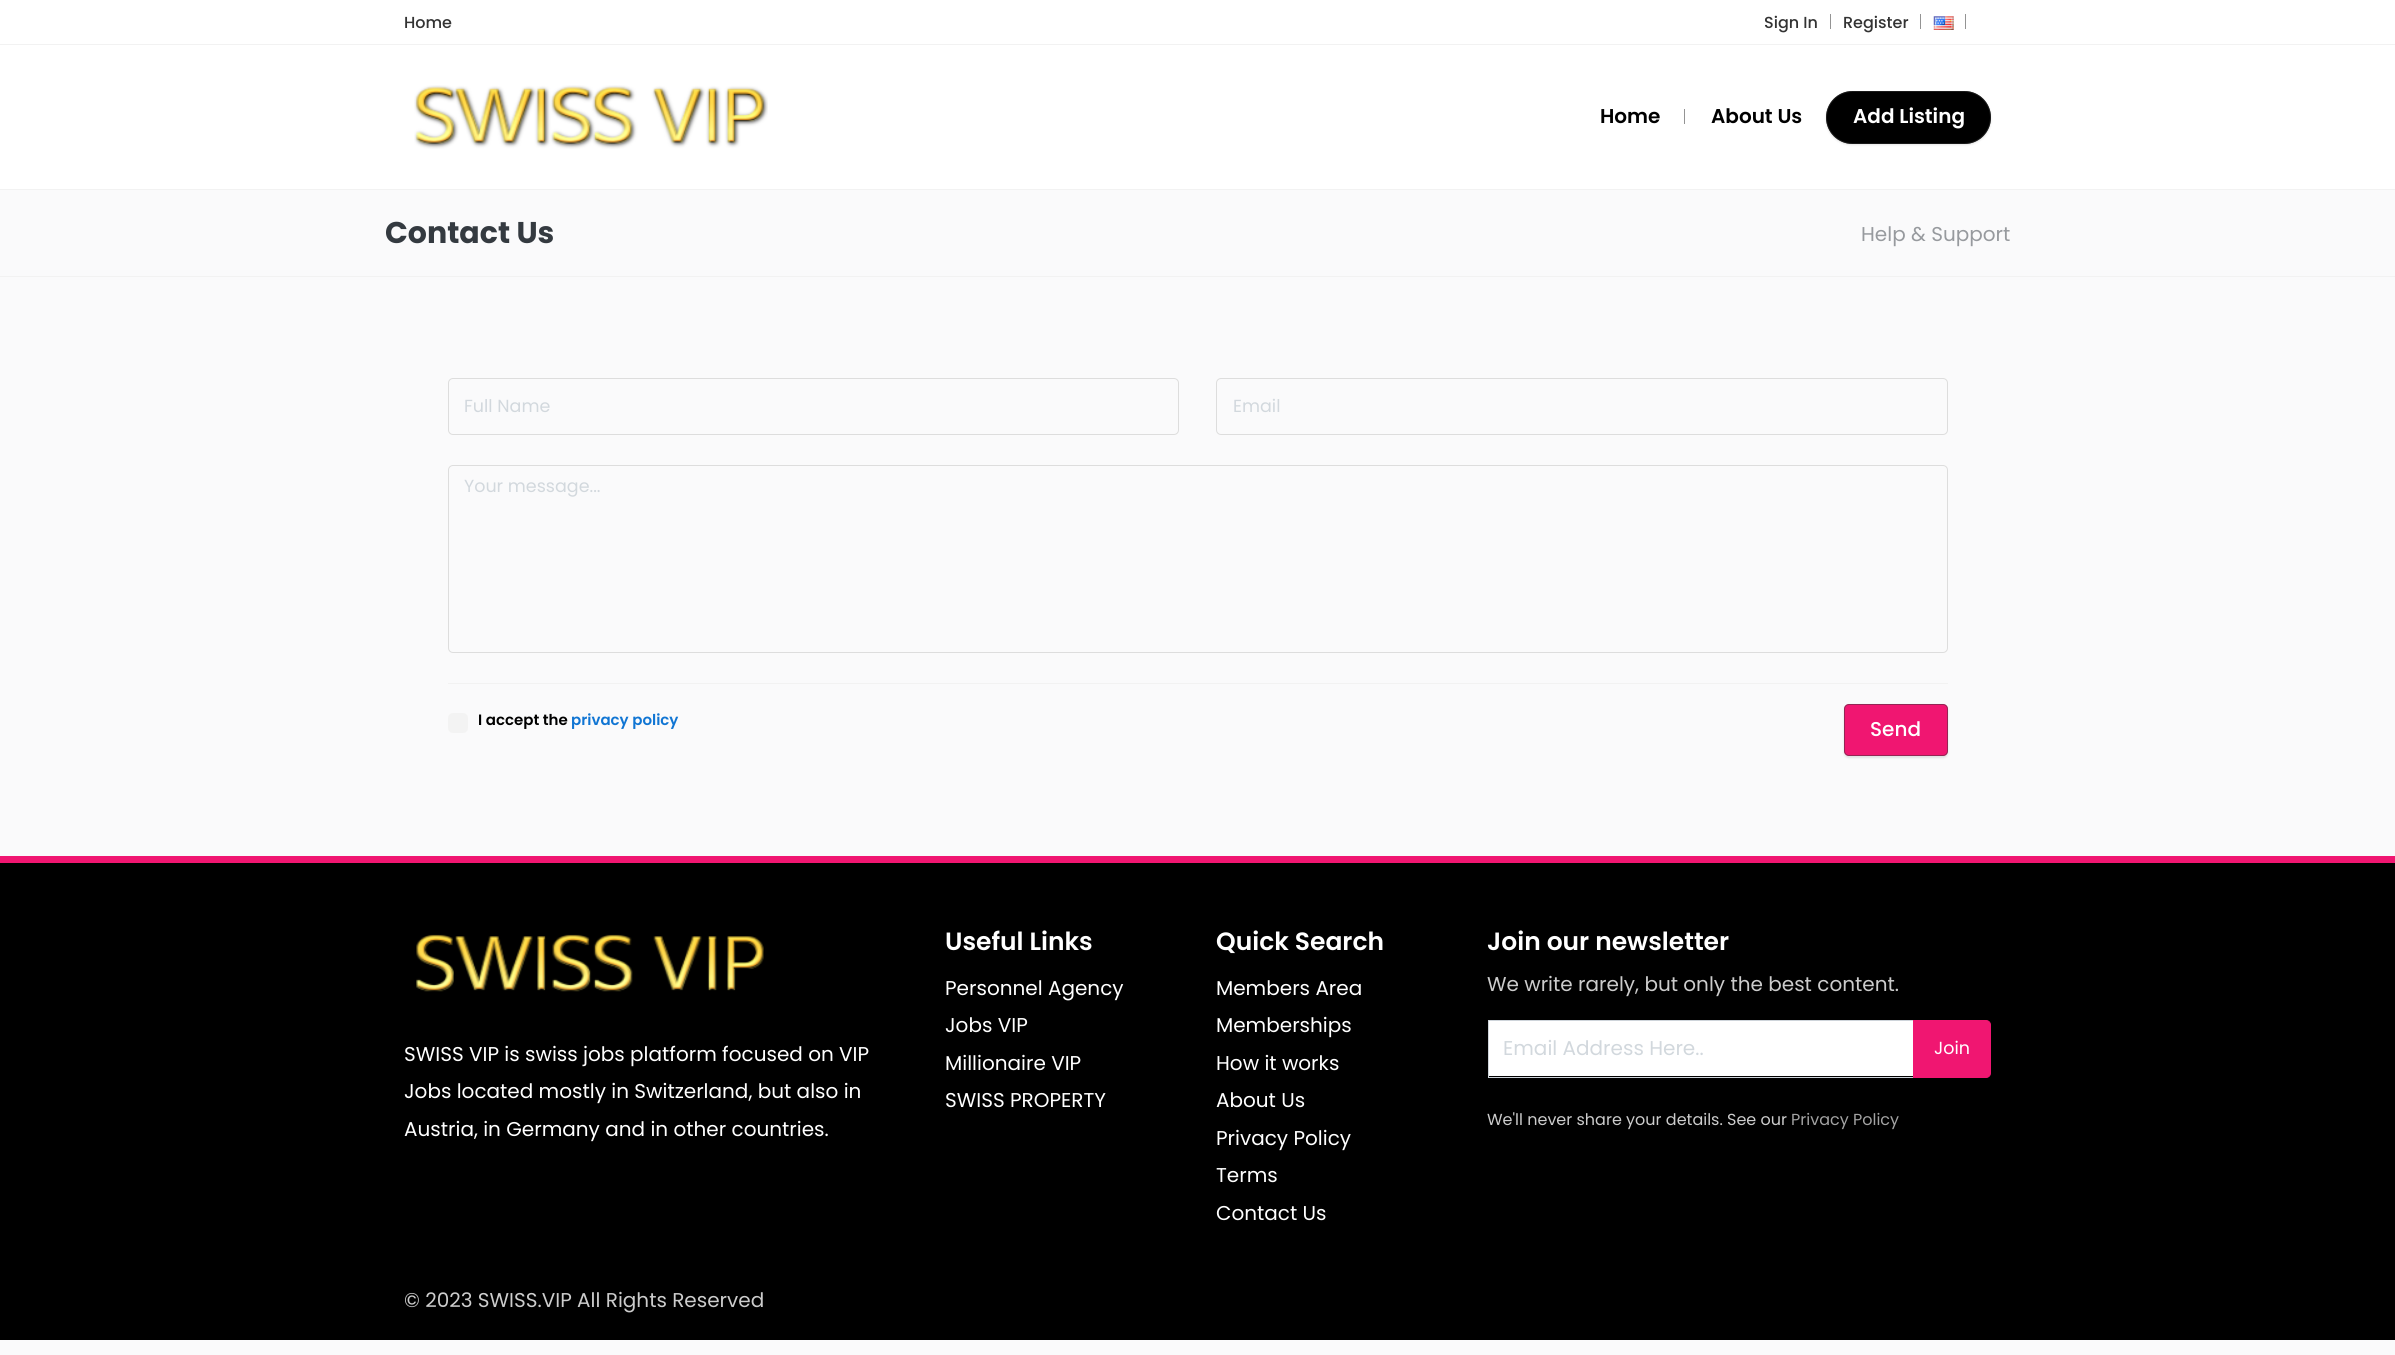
#include <cairo/cairo.h>
#include <math.h>
#include <stddef.h>


static void rounded_rect(cairo_t *cr, double x, double y, double w, double h, double r) {
  cairo_new_sub_path(cr);
  cairo_arc(cr, x + w - r, y + h - r, r, 0, M_PI / 2);
  cairo_arc(cr, x + r, y + h - r, r, M_PI / 2, M_PI);
  cairo_arc(cr, x + r, y + r, r, M_PI, 1.5 * M_PI);
  cairo_arc(cr, x + w - r, y + r, r, 1.5 * M_PI, 2 * M_PI);
  cairo_close_path(cr);
}

static void draw_shadow(cairo_t *cr, double x, double y, double w, double h, double r, double blur, double alpha) {
  cairo_push_group_with_content(cr, CAIRO_CONTENT_ALPHA);
  cairo_set_operator(cr, CAIRO_OPERATOR_SOURCE);
  for (int i = 15; i >= -15 && fmin(w, h) + blur * i / 3 > 0; i -= 2) {
    double e = blur * i / 6;
    cairo_set_source_rgba(cr, 0, 0, 0, alpha * erfc((i - 1) / 8.5) / 2);
    rounded_rect(cr, x - e, y - e, w + 2 * e, h + 2 * e, fmax(0, fmin(r + e + blur * .6, fmin(w, h) / 2 + e)));
    cairo_fill(cr);
  }
  cairo_pattern_t *soft = cairo_pop_group(cr);
  cairo_mask(cr, soft);
  cairo_pattern_destroy(soft);
}

static void draw_image(cairo_t *cr, const char *path, double x, double y, double w, double h) {
  cairo_surface_t *image = cairo_image_surface_create_from_png(path);
  cairo_save(cr);
  cairo_set_source_surface(cr, image, x, y);
  cairo_rectangle(cr, x, y, w, h);
  cairo_fill(cr);
  cairo_restore(cr);
  cairo_surface_destroy(image);
}

static void draw(cairo_t *cr) {
  cairo_set_source_rgb(cr, 250 / 255.0, 250 / 255.0, 251 / 255.0);
  cairo_paint(cr);
  cairo_set_source_rgb(cr, 1, 1, 1);
  cairo_rectangle(cr, 0, 0, 2395, 189);
  cairo_fill(cr);
  cairo_set_source_rgb(cr, 242 / 255.0, 242 / 255.0, 242 / 255.0);
  cairo_rectangle(cr, 0, 189, 2395, 1);
  cairo_fill(cr);
  cairo_rectangle(cr, 0, 44, 2395, 1);
  cairo_fill(cr);
  cairo_set_source_rgb(cr, 148 / 255.0, 148 / 255.0, 148 / 255.0);
  cairo_rectangle(cr, 1830, 14, 1, 15);
  cairo_fill(cr);
  cairo_rectangle(cr, 1920, 14, 1, 15);
  cairo_fill(cr);
  draw_image(cr, "images/1.png", 1933, 16, 21, 14);
  cairo_rectangle(cr, 1965, 14, 1, 15);
  cairo_fill(cr);
  draw_image(cr, "images/2.png", 414, 85, 354, 64);
  cairo_rectangle(cr, 1684, 109, 1, 15);
  cairo_fill(cr);
  cairo_set_source_rgb(cr, 0, 0, 0);
  draw_shadow(cr, 1826, 93, 165, 52, 26, 1, 0.1);
  cairo_set_source_rgb(cr, 0, 0, 0);
  rounded_rect(cr, 1826, 91, 165, 53, 26.5);
  cairo_fill(cr);
  rounded_rect(cr, 1826.5, 91.5, 164, 52, 26);
  cairo_set_source_rgba(cr, 54 / 255.0, 54 / 255.0, 54 / 255.0, 0.49);
  cairo_set_line_width(cr, 1);
  cairo_stroke(cr);
  cairo_set_source_rgb(cr, 242 / 255.0, 242 / 255.0, 242 / 255.0);
  cairo_rectangle(cr, 0, 276, 2395, 1);
  cairo_fill(cr);
  rounded_rect(cr, 448.5, 378.5, 730, 56, 4.5);
  cairo_set_source_rgb(cr, 221 / 255.0, 221 / 255.0, 221 / 255.0);
  cairo_stroke(cr);
  rounded_rect(cr, 1216.5, 378.5, 731, 56, 4.5);
  cairo_stroke(cr);
  rounded_rect(cr, 448.5, 465.5, 1499, 187, 4.5);
  cairo_stroke(cr);
  cairo_set_source_rgb(cr, 242 / 255.0, 242 / 255.0, 242 / 255.0);
  cairo_rectangle(cr, 448, 683, 1500, 1);
  cairo_fill(cr);
  cairo_set_source_rgb(cr, 243 / 255.0, 243 / 255.0, 243 / 255.0);
  rounded_rect(cr, 448, 713, 20, 20, 5);
  cairo_fill(cr);
  cairo_set_source_rgb(cr, 0, 0, 0);
  draw_shadow(cr, 1844, 705, 104, 53, 5, 1, 0.1);
  cairo_set_source_rgb(cr, 240 / 255.0, 22 / 255.0, 113 / 255.0);
  rounded_rect(cr, 1844, 704, 104, 52, 5);
  cairo_fill(cr);
  rounded_rect(cr, 1844.5, 704.5, 103, 51, 4.5);
  cairo_set_source_rgba(cr, 54 / 255.0, 54 / 255.0, 54 / 255.0, 0.49);
  cairo_stroke(cr);
  cairo_set_source_rgb(cr, 240 / 255.0, 22 / 255.0, 113 / 255.0);
  cairo_rectangle(cr, 0, 856, 2395, 7);
  cairo_fill(cr);
  cairo_set_source_rgb(cr, 0, 0, 0);
  cairo_rectangle(cr, 0, 863, 2395, 477);
  cairo_fill(cr);
  draw_image(cr, "images/3.png", 416, 934, 348, 58);
  cairo_set_source_rgb(cr, 1, 1, 1);
  cairo_rectangle(cr, 1489, 1021, 424, 55);
  cairo_fill(cr);
  cairo_rectangle(cr, 1488.5, 1020.5, 425, 57);
  cairo_set_source_rgb(cr, 206 / 255.0, 212 / 255.0, 218 / 255.0);
  cairo_stroke(cr);
  cairo_set_source_rgb(cr, 240 / 255.0, 22 / 255.0, 113 / 255.0);
  cairo_new_path(cr);
  cairo_move_to(cr, 1913.5, 1020.5);
  cairo_line_to(cr, 1986, 1020.5);
  cairo_curve_to(cr, 1988.5, 1020.5, 1990.5, 1022.5, 1990.5, 1025);
  cairo_line_to(cr, 1990.5, 1073);
  cairo_curve_to(cr, 1990.5, 1075.5, 1988.5, 1077.5, 1986, 1077.5);
  cairo_line_to(cr, 1913.5, 1077.5);
  cairo_close_path(cr);
  cairo_fill_preserve(cr);
  cairo_stroke(cr);
  cairo_select_font_face(cr, "Poppins Medium", CAIRO_FONT_SLANT_NORMAL, CAIRO_FONT_WEIGHT_NORMAL);
  cairo_set_font_size(cr, 16);
  cairo_set_source_rgb(cr, 51 / 255.0, 51 / 255.0, 51 / 255.0);
  cairo_move_to(cr, 404, 28);
  cairo_show_text(cr, "Home");
  cairo_move_to(cr, 1764, 28);
  cairo_show_text(cr, "Sign In");
  cairo_move_to(cr, 1843, 28);
  cairo_show_text(cr, "Register");
  cairo_select_font_face(cr, "Poppins SemiBold", CAIRO_FONT_SLANT_NORMAL, CAIRO_FONT_WEIGHT_NORMAL);
  cairo_set_font_size(cr, 20);
  cairo_set_source_rgb(cr, 0, 0, 0);
  cairo_move_to(cr, 1600, 123);
  cairo_show_text(cr, "Home");
  cairo_move_to(cr, 1711, 123);
  cairo_show_text(cr, "About Us");
  cairo_set_source_rgb(cr, 1, 1, 1);
  cairo_move_to(cr, 1853, 123);
  cairo_show_text(cr, "Add Listing");
  cairo_select_font_face(cr, "Poppins", CAIRO_FONT_SLANT_NORMAL, CAIRO_FONT_WEIGHT_BOLD);
  cairo_set_font_size(cr, 30);
  cairo_set_source_rgb(cr, 52 / 255.0, 58 / 255.0, 64 / 255.0);
  cairo_move_to(cr, 385, 243);
  cairo_show_text(cr, "Contact Us");
  cairo_select_font_face(cr, "Poppins", CAIRO_FONT_SLANT_NORMAL, CAIRO_FONT_WEIGHT_NORMAL);
  cairo_set_font_size(cr, 20);
  cairo_set_source_rgb(cr, 151 / 255.0, 154 / 255.0, 158 / 255.0);
  cairo_move_to(cr, 1861, 241);
  cairo_show_text(cr, "Help & Support");
  cairo_set_font_size(cr, 17.5);
  cairo_set_source_rgb(cr, 210 / 255.0, 216 / 255.0, 221 / 255.0);
  cairo_move_to(cr, 464, 412);
  cairo_show_text(cr, "Full Name");
  cairo_move_to(cr, 1233, 412);
  cairo_show_text(cr, "Email");
  cairo_move_to(cr, 464, 492);
  cairo_show_text(cr, "Your message...");
  cairo_select_font_face(cr, "Poppins SemiBold", CAIRO_FONT_SLANT_NORMAL, CAIRO_FONT_WEIGHT_NORMAL);
  cairo_set_font_size(cr, 15);
  cairo_set_source_rgb(cr, 0, 0, 0);
  cairo_move_to(cr, 478, 725);
  cairo_show_text(cr, "I accept the");
  cairo_set_source_rgb(cr, 16 / 255.0, 117 / 255.0, 211 / 255.0);
  cairo_move_to(cr, 571, 725);
  cairo_show_text(cr, "privacy policy");
  cairo_select_font_face(cr, "Poppins Medium", CAIRO_FONT_SLANT_NORMAL, CAIRO_FONT_WEIGHT_NORMAL);
  cairo_set_font_size(cr, 20);
  cairo_set_source_rgb(cr, 1, 1, 1);
  cairo_move_to(cr, 1870, 736);
  cairo_show_text(cr, "Send");
  cairo_select_font_face(cr, "Poppins", CAIRO_FONT_SLANT_NORMAL, CAIRO_FONT_WEIGHT_NORMAL);
  cairo_move_to(cr, 404, 1061);
  cairo_show_text(cr, "SWISS VIP is swiss jobs platform focused on VIP");
  cairo_move_to(cr, 404, 1098);
  cairo_show_text(cr, "Jobs located mostly in Switzerland, but also in");
  cairo_move_to(cr, 404, 1136);
  cairo_show_text(cr, "Austria, in Germany and in other countries.");
  cairo_select_font_face(cr, "Poppins SemiBold", CAIRO_FONT_SLANT_NORMAL, CAIRO_FONT_WEIGHT_NORMAL);
  cairo_set_font_size(cr, 25);
  cairo_move_to(cr, 945, 950);
  cairo_show_text(cr, "Useful Links");
  cairo_select_font_face(cr, "Poppins", CAIRO_FONT_SLANT_NORMAL, CAIRO_FONT_WEIGHT_NORMAL);
  cairo_set_font_size(cr, 20);
  cairo_move_to(cr, 945, 995);
  cairo_show_text(cr, "Personnel Agency");
  cairo_move_to(cr, 945, 1032);
  cairo_show_text(cr, "Jobs VIP");
  cairo_move_to(cr, 945, 1070);
  cairo_show_text(cr, "Millionaire VIP");
  cairo_move_to(cr, 945, 1107);
  cairo_show_text(cr, "SWISS PROPERTY");
  cairo_select_font_face(cr, "Poppins SemiBold", CAIRO_FONT_SLANT_NORMAL, CAIRO_FONT_WEIGHT_NORMAL);
  cairo_set_font_size(cr, 25);
  cairo_move_to(cr, 1216, 950);
  cairo_show_text(cr, "Quick Search");
  cairo_select_font_face(cr, "Poppins", CAIRO_FONT_SLANT_NORMAL, CAIRO_FONT_WEIGHT_NORMAL);
  cairo_set_font_size(cr, 20);
  cairo_move_to(cr, 1216, 995);
  cairo_show_text(cr, "Members Area");
  cairo_move_to(cr, 1216, 1032);
  cairo_show_text(cr, "Memberships");
  cairo_move_to(cr, 1216, 1070);
  cairo_show_text(cr, "How it works");
  cairo_move_to(cr, 1216, 1107);
  cairo_show_text(cr, "About Us");
  cairo_move_to(cr, 1216, 1145);
  cairo_show_text(cr, "Privacy Policy");
  cairo_move_to(cr, 1216, 1182);
  cairo_show_text(cr, "Terms");
  cairo_move_to(cr, 1216, 1220);
  cairo_show_text(cr, "Contact Us");
  cairo_select_font_face(cr, "Poppins SemiBold", CAIRO_FONT_SLANT_NORMAL, CAIRO_FONT_WEIGHT_NORMAL);
  cairo_set_font_size(cr, 25);
  cairo_move_to(cr, 1487, 950);
  cairo_show_text(cr, "Join our newsletter");
  cairo_select_font_face(cr, "Poppins", CAIRO_FONT_SLANT_NORMAL, CAIRO_FONT_WEIGHT_NORMAL);
  cairo_set_font_size(cr, 20);
  cairo_set_source_rgb(cr, 204 / 255.0, 204 / 255.0, 204 / 255.0);
  cairo_move_to(cr, 1487, 991);
  cairo_show_text(cr, "We write rarely, but only the best content.");
  cairo_set_source_rgb(cr, 210 / 255.0, 216 / 255.0, 221 / 255.0);
  cairo_move_to(cr, 1503, 1055);
  cairo_show_text(cr, "Email Address Here..");
  cairo_set_font_size(cr, 17.5);
  cairo_set_source_rgb(cr, 1, 1, 1);
  cairo_move_to(cr, 1934, 1054);
  cairo_show_text(cr, "Join");
  cairo_set_font_size(cr, 16);
  cairo_set_source_rgb(cr, 204 / 255.0, 204 / 255.0, 204 / 255.0);
  cairo_move_to(cr, 1487, 1125);
  cairo_show_text(cr, "We'll never share your details. See our");
  cairo_set_source_rgb(cr, 163 / 255.0, 163 / 255.0, 163 / 255.0);
  cairo_move_to(cr, 1791, 1125);
  cairo_show_text(cr, "Privacy Policy");
  cairo_set_font_size(cr, 20);
  cairo_set_source_rgb(cr, 204 / 255.0, 204 / 255.0, 204 / 255.0);
  cairo_move_to(cr, 404, 1307);
  cairo_show_text(cr, "© 2023 SWISS.VIP All Rights Reserved");
}

int main(void) {
  cairo_surface_t *surface = cairo_image_surface_create(CAIRO_FORMAT_RGB24, 2395, 1355);
  cairo_t *cr = cairo_create(surface);
  cairo_font_options_t *options = cairo_font_options_create();
  cairo_font_options_set_hint_metrics(options, CAIRO_HINT_METRICS_OFF);
  cairo_font_options_set_hint_style(options, CAIRO_HINT_STYLE_NONE);
  cairo_set_font_options(cr, options);
  cairo_set_miter_limit(cr, 4);
  draw(cr);
  cairo_surface_write_to_png(surface, "out.png");
  cairo_font_options_destroy(options);
  cairo_destroy(cr);
  cairo_surface_destroy(surface);
  return 0;
}
